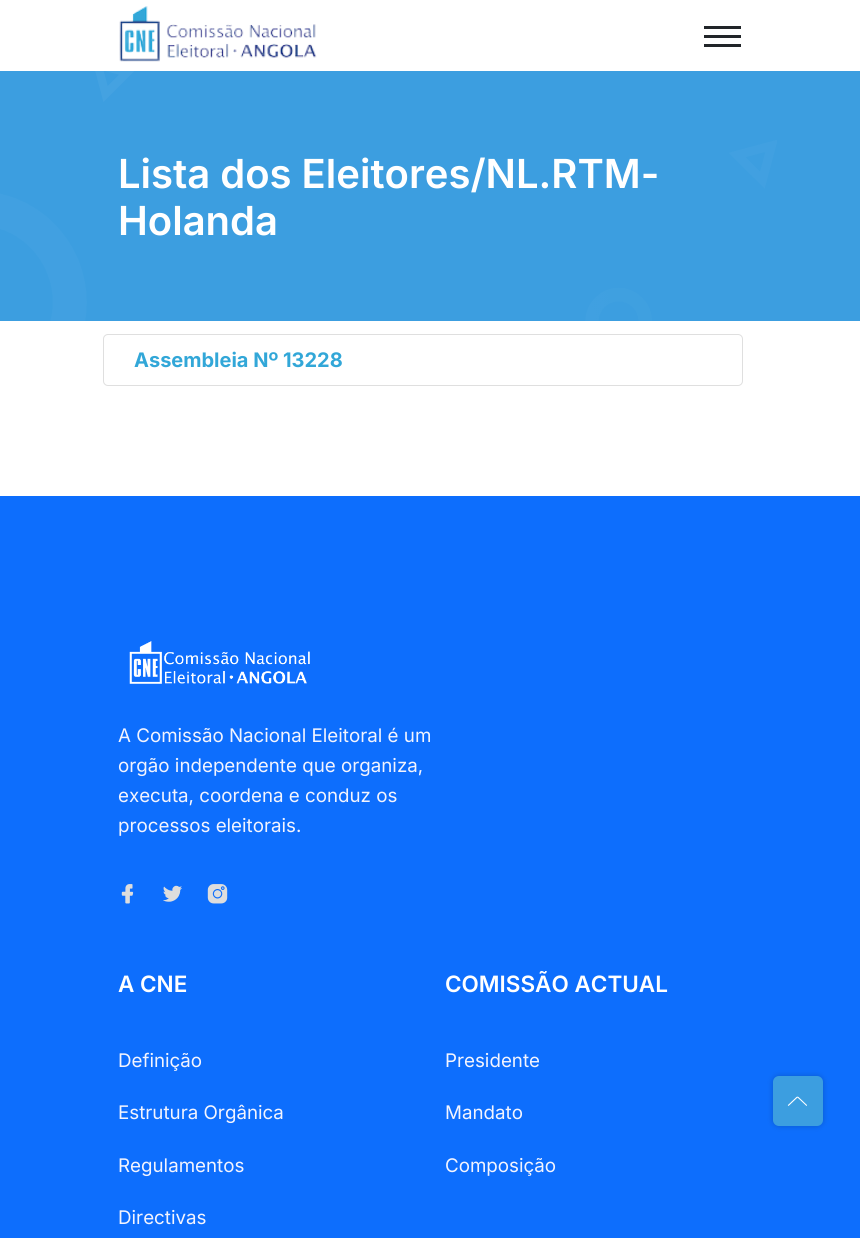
#include <cairo/cairo.h>
#include <math.h>
#include <stddef.h>


static void rounded_rect(cairo_t *cr, double x, double y, double w, double h, double r) {
  cairo_new_sub_path(cr);
  cairo_arc(cr, x + w - r, y + h - r, r, 0, M_PI / 2);
  cairo_arc(cr, x + r, y + h - r, r, M_PI / 2, M_PI);
  cairo_arc(cr, x + r, y + r, r, M_PI, 1.5 * M_PI);
  cairo_arc(cr, x + w - r, y + r, r, 1.5 * M_PI, 2 * M_PI);
  cairo_close_path(cr);
}

static void draw_shadow(cairo_t *cr, double x, double y, double w, double h, double r, double blur, double alpha) {
  cairo_push_group_with_content(cr, CAIRO_CONTENT_ALPHA);
  cairo_set_operator(cr, CAIRO_OPERATOR_SOURCE);
  for (int i = 15; i >= -15 && fmin(w, h) + blur * i / 3 > 0; i -= 2) {
    double e = blur * i / 6;
    cairo_set_source_rgba(cr, 0, 0, 0, alpha * erfc((i - 1) / 8.5) / 2);
    rounded_rect(cr, x - e, y - e, w + 2 * e, h + 2 * e, fmax(0, fmin(r + e + blur * .6, fmin(w, h) / 2 + e)));
    cairo_fill(cr);
  }
  cairo_pattern_t *soft = cairo_pop_group(cr);
  cairo_mask(cr, soft);
  cairo_pattern_destroy(soft);
}

static void draw_image(cairo_t *cr, const char *path, double x, double y, double w, double h) {
  cairo_surface_t *image = cairo_image_surface_create_from_png(path);
  cairo_save(cr);
  cairo_set_source_surface(cr, image, x, y);
  cairo_rectangle(cr, x, y, w, h);
  cairo_fill(cr);
  cairo_restore(cr);
  cairo_surface_destroy(image);
}

static void draw(cairo_t *cr) {
  cairo_set_source_rgb(cr, 1, 1, 1);
  cairo_paint(cr);
  draw_image(cr, "images/1.png", 119, 6, 198, 56);
  cairo_set_source_rgb(cr, 33 / 255.0, 37 / 255.0, 41 / 255.0);
  cairo_rectangle(cr, 704, 26, 37, 3);
  cairo_fill(cr);
  cairo_rectangle(cr, 704, 35, 37, 3);
  cairo_fill(cr);
  cairo_rectangle(cr, 704, 44, 37, 3);
  cairo_fill(cr);
  cairo_set_source_rgb(cr, 60 / 255.0, 158 / 255.0, 224 / 255.0);
  cairo_rectangle(cr, 0, 71, 860, 250);
  cairo_fill(cr);
  draw_image(cr, "images/2.png", 0, 71, 777, 250);
  rounded_rect(cr, 103.5, 334.5, 639, 51, 4.5);
  cairo_set_source_rgb(cr, 223 / 255.0, 223 / 255.0, 223 / 255.0);
  cairo_set_line_width(cr, 1);
  cairo_stroke(cr);
  cairo_set_source_rgb(cr, 13 / 255.0, 110 / 255.0, 253 / 255.0);
  cairo_rectangle(cr, 0, 496, 860, 742);
  cairo_fill(cr);
  draw_image(cr, "images/3.png", 129, 641, 181, 43);
  draw_image(cr, "images/4.png", 121, 884, 13, 20);
  draw_image(cr, "images/5.png", 163, 885, 19, 17);
  draw_image(cr, "images/6.png", 207, 884, 21, 20);
  cairo_set_source_rgb(cr, 0, 0, 0);
  draw_shadow(cr, 773, 1076, 50, 50, 6, 3, 0.2);
  cairo_set_source_rgb(cr, 60 / 255.0, 158 / 255.0, 224 / 255.0);
  rounded_rect(cr, 773, 1076, 50, 50, 6);
  cairo_fill(cr);
  draw_image(cr, "images/7.png", 787, 1096, 20, 10);
  cairo_select_font_face(cr, "Inter SemiBold", CAIRO_FONT_SLANT_NORMAL, CAIRO_FONT_WEIGHT_NORMAL);
  cairo_set_font_size(cr, 40);
  cairo_set_source_rgb(cr, 1, 1, 1);
  cairo_move_to(cr, 118, 188);
  cairo_show_text(cr, "Lista dos Eleitores/NL.RTM-");
  cairo_move_to(cr, 118, 235);
  cairo_show_text(cr, "Holanda");
  cairo_select_font_face(cr, "Inter", CAIRO_FONT_SLANT_NORMAL, CAIRO_FONT_WEIGHT_BOLD);
  cairo_set_font_size(cr, 20);
  cairo_set_source_rgb(cr, 50 / 255.0, 167 / 255.0, 216 / 255.0);
  cairo_move_to(cr, 134, 367);
  cairo_show_text(cr, "Assembleia Nº 13228");
  cairo_select_font_face(cr, "Inter", CAIRO_FONT_SLANT_NORMAL, CAIRO_FONT_WEIGHT_NORMAL);
  cairo_set_font_size(cr, 18.75);
  cairo_set_source_rgb(cr, 243 / 255.0, 244 / 255.0, 254 / 255.0);
  cairo_move_to(cr, 118, 742);
  cairo_show_text(cr, "A Comissão Nacional Eleitoral é um");
  cairo_move_to(cr, 118, 772);
  cairo_show_text(cr, "orgão independente que organiza,");
  cairo_move_to(cr, 118, 802);
  cairo_show_text(cr, "executa, coordena e conduz os");
  cairo_move_to(cr, 118, 832);
  cairo_show_text(cr, "processos eleitorais.");
  cairo_select_font_face(cr, "Inter SemiBold", CAIRO_FONT_SLANT_NORMAL, CAIRO_FONT_WEIGHT_NORMAL);
  cairo_set_font_size(cr, 22.5);
  cairo_set_source_rgb(cr, 1, 1, 1);
  cairo_move_to(cr, 118, 992);
  cairo_show_text(cr, "A CNE");
  cairo_select_font_face(cr, "Inter", CAIRO_FONT_SLANT_NORMAL, CAIRO_FONT_WEIGHT_NORMAL);
  cairo_set_font_size(cr, 18.75);
  cairo_set_source_rgb(cr, 243 / 255.0, 244 / 255.0, 254 / 255.0);
  cairo_move_to(cr, 118, 1067);
  cairo_show_text(cr, "Definição");
  cairo_move_to(cr, 118, 1119);
  cairo_show_text(cr, "Estrutura Orgânica");
  cairo_move_to(cr, 118, 1172);
  cairo_show_text(cr, "Regulamentos");
  cairo_move_to(cr, 118, 1224);
  cairo_show_text(cr, "Directivas");
  cairo_select_font_face(cr, "Inter SemiBold", CAIRO_FONT_SLANT_NORMAL, CAIRO_FONT_WEIGHT_NORMAL);
  cairo_set_font_size(cr, 22.5);
  cairo_set_source_rgb(cr, 1, 1, 1);
  cairo_move_to(cr, 445, 992);
  cairo_show_text(cr, "COMISSÃO ACTUAL");
  cairo_select_font_face(cr, "Inter", CAIRO_FONT_SLANT_NORMAL, CAIRO_FONT_WEIGHT_NORMAL);
  cairo_set_font_size(cr, 18.75);
  cairo_set_source_rgb(cr, 243 / 255.0, 244 / 255.0, 254 / 255.0);
  cairo_move_to(cr, 445, 1067);
  cairo_show_text(cr, "Presidente");
  cairo_move_to(cr, 445, 1119);
  cairo_show_text(cr, "Mandato");
  cairo_move_to(cr, 445, 1172);
  cairo_show_text(cr, "Composição");
}

int main(void) {
  cairo_surface_t *surface = cairo_image_surface_create(CAIRO_FORMAT_RGB24, 860, 1238);
  cairo_t *cr = cairo_create(surface);
  cairo_font_options_t *options = cairo_font_options_create();
  cairo_font_options_set_hint_metrics(options, CAIRO_HINT_METRICS_OFF);
  cairo_font_options_set_hint_style(options, CAIRO_HINT_STYLE_NONE);
  cairo_set_font_options(cr, options);
  cairo_set_miter_limit(cr, 4);
  draw(cr);
  cairo_surface_write_to_png(surface, "out.png");
  cairo_font_options_destroy(options);
  cairo_destroy(cr);
  cairo_surface_destroy(surface);
  return 0;
}
